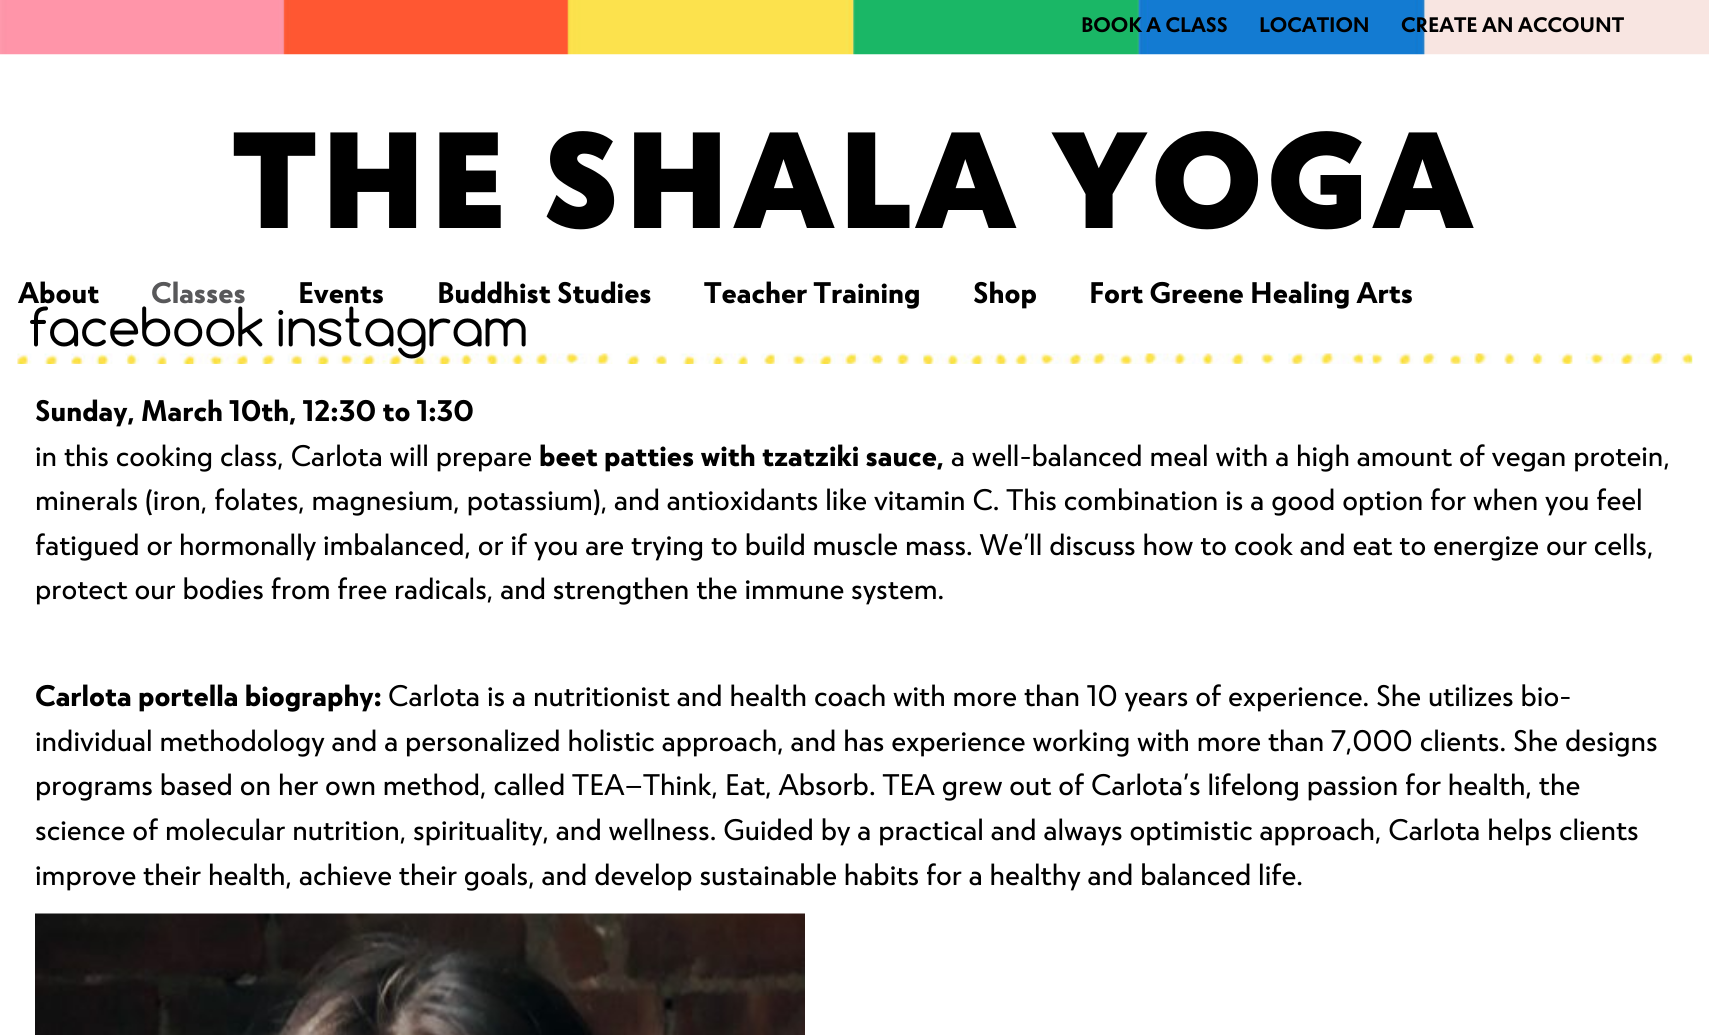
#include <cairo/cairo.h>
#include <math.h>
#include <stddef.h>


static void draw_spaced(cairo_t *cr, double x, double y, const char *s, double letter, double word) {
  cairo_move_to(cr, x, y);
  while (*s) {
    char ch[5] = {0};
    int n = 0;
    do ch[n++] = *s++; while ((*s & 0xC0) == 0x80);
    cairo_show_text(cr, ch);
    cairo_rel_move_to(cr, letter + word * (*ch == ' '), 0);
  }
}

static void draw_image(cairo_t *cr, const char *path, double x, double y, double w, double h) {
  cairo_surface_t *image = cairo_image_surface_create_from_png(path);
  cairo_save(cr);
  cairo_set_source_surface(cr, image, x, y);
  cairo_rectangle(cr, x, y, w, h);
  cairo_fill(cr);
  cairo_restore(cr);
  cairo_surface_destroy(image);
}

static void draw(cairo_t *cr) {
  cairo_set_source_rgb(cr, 1, 1, 1);
  cairo_paint(cr);
  draw_image(cr, "images/1.png", 0, 0, 1709, 55);
  draw_image(cr, "images/2.png", 30, 306, 233, 41);
  draw_image(cr, "images/4.png", 17, 353, 1676, 11);
  draw_image(cr, "images/3.png", 278, 306, 248, 53);
  draw_image(cr, "images/5.png", 35, 913, 770, 122);
  cairo_select_font_face(cr, "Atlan", CAIRO_FONT_SLANT_NORMAL, CAIRO_FONT_WEIGHT_BOLD);
  cairo_set_font_size(cr, 21);
  cairo_set_source_rgb(cr, 0, 0, 0);
  cairo_move_to(cr, 1081, 32);
  cairo_show_text(cr, "BOOK A CLASS");
  cairo_move_to(cr, 1259, 32);
  cairo_show_text(cr, "LOCATION");
  cairo_move_to(cr, 1401, 32);
  cairo_show_text(cr, "CREATE AN ACCOUNT");
  cairo_select_font_face(cr, "Atlan Black", CAIRO_FONT_SLANT_NORMAL, CAIRO_FONT_WEIGHT_NORMAL);
  cairo_set_font_size(cr, 136.5);
  draw_spaced(cr, 233, 228, "THE SHALA YOGA", 5.25, 0);
  cairo_select_font_face(cr, "Atlan", CAIRO_FONT_SLANT_NORMAL, CAIRO_FONT_WEIGHT_BOLD);
  cairo_set_font_size(cr, 29.75);
  cairo_move_to(cr, 18, 303);
  cairo_show_text(cr, "About");
  cairo_set_source_rgb(cr, 88 / 255.0, 88 / 255.0, 90 / 255.0);
  cairo_move_to(cr, 151, 303);
  cairo_show_text(cr, "Classes");
  cairo_set_source_rgb(cr, 0, 0, 0);
  cairo_move_to(cr, 298, 303);
  cairo_show_text(cr, "Events");
  cairo_move_to(cr, 437, 303);
  cairo_show_text(cr, "Buddhist Studies");
  cairo_move_to(cr, 704, 303);
  cairo_show_text(cr, "Teacher Training");
  cairo_move_to(cr, 973, 303);
  cairo_show_text(cr, "Shop");
  cairo_move_to(cr, 1089, 303);
  cairo_show_text(cr, "Fort Greene Healing Arts");
  cairo_move_to(cr, 35, 421);
  cairo_show_text(cr, "Sunday, March 10th, 12:30 to 1:30");
  cairo_select_font_face(cr, "Atlan", CAIRO_FONT_SLANT_NORMAL, CAIRO_FONT_WEIGHT_NORMAL);
  cairo_move_to(cr, 35, 466);
  cairo_show_text(cr, "in this cooking class, Carlota will prepare");
  cairo_select_font_face(cr, "Atlan", CAIRO_FONT_SLANT_NORMAL, CAIRO_FONT_WEIGHT_BOLD);
  cairo_move_to(cr, 539, 466);
  cairo_show_text(cr, "beet patties with tzatziki sauce,");
  cairo_select_font_face(cr, "Atlan", CAIRO_FONT_SLANT_NORMAL, CAIRO_FONT_WEIGHT_NORMAL);
  cairo_move_to(cr, 951, 466);
  cairo_show_text(cr, "a well-balanced meal with a high amount of vegan protein,");
  cairo_move_to(cr, 35, 510);
  cairo_show_text(cr, "minerals (iron, folates, magnesium, potassium), and antioxidants like vitamin C. This combination is a good option for when you feel");
  cairo_move_to(cr, 35, 555);
  cairo_show_text(cr, "fatigued or hormonally imbalanced, or if you are trying to build muscle mass. We’ll discuss how to cook and eat to energize our cells,");
  cairo_move_to(cr, 35, 599);
  cairo_show_text(cr, "protect our bodies from free radicals, and strengthen the immune system.");
  cairo_select_font_face(cr, "Atlan", CAIRO_FONT_SLANT_NORMAL, CAIRO_FONT_WEIGHT_BOLD);
  cairo_move_to(cr, 35, 706);
  cairo_show_text(cr, "Carlota portella biography:");
  cairo_select_font_face(cr, "Atlan", CAIRO_FONT_SLANT_NORMAL, CAIRO_FONT_WEIGHT_NORMAL);
  cairo_move_to(cr, 388, 706);
  cairo_show_text(cr, "Carlota is a nutritionist and health coach with more than 10 years of experience. She utilizes bio-");
  cairo_move_to(cr, 35, 751);
  cairo_show_text(cr, "individual methodology and a personalized holistic approach, and has experience working with more than 7,000 clients. She designs");
  cairo_move_to(cr, 35, 795);
  cairo_show_text(cr, "programs based on her own method, called TEA—Think, Eat, Absorb. TEA grew out of Carlota’s lifelong passion for health, the");
  cairo_move_to(cr, 35, 840);
  cairo_show_text(cr, "science of molecular nutrition, spirituality, and wellness. Guided by a practical and always optimistic approach, Carlota helps clients");
  cairo_move_to(cr, 35, 885);
  cairo_show_text(cr, "improve their health, achieve their goals, and develop sustainable habits for a healthy and balanced life.");
}

int main(void) {
  cairo_surface_t *surface = cairo_image_surface_create(CAIRO_FORMAT_RGB24, 1709, 1035);
  cairo_t *cr = cairo_create(surface);
  cairo_font_options_t *options = cairo_font_options_create();
  cairo_font_options_set_hint_metrics(options, CAIRO_HINT_METRICS_OFF);
  cairo_font_options_set_hint_style(options, CAIRO_HINT_STYLE_NONE);
  cairo_set_font_options(cr, options);
  cairo_set_miter_limit(cr, 4);
  draw(cr);
  cairo_surface_write_to_png(surface, "out.png");
  cairo_font_options_destroy(options);
  cairo_destroy(cr);
  cairo_surface_destroy(surface);
  return 0;
}
